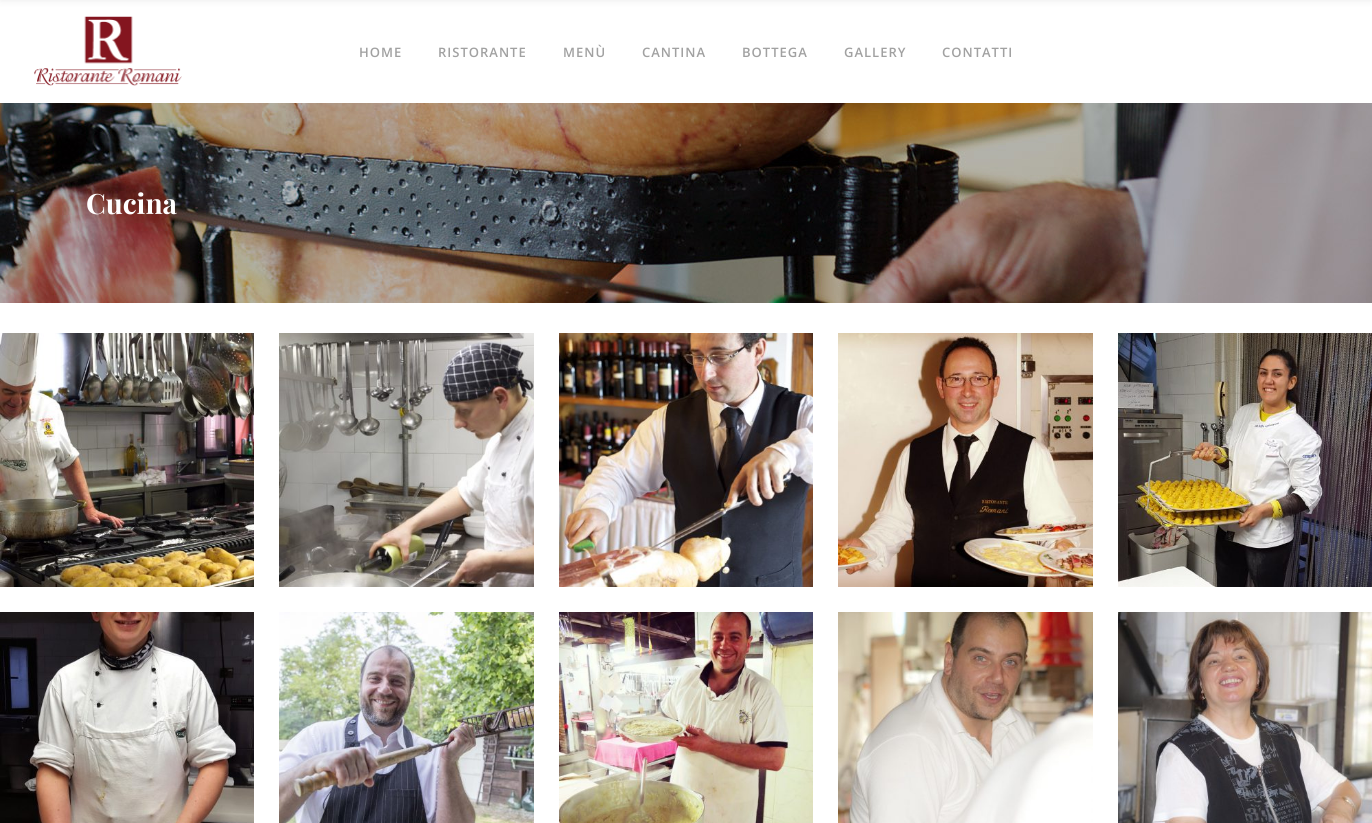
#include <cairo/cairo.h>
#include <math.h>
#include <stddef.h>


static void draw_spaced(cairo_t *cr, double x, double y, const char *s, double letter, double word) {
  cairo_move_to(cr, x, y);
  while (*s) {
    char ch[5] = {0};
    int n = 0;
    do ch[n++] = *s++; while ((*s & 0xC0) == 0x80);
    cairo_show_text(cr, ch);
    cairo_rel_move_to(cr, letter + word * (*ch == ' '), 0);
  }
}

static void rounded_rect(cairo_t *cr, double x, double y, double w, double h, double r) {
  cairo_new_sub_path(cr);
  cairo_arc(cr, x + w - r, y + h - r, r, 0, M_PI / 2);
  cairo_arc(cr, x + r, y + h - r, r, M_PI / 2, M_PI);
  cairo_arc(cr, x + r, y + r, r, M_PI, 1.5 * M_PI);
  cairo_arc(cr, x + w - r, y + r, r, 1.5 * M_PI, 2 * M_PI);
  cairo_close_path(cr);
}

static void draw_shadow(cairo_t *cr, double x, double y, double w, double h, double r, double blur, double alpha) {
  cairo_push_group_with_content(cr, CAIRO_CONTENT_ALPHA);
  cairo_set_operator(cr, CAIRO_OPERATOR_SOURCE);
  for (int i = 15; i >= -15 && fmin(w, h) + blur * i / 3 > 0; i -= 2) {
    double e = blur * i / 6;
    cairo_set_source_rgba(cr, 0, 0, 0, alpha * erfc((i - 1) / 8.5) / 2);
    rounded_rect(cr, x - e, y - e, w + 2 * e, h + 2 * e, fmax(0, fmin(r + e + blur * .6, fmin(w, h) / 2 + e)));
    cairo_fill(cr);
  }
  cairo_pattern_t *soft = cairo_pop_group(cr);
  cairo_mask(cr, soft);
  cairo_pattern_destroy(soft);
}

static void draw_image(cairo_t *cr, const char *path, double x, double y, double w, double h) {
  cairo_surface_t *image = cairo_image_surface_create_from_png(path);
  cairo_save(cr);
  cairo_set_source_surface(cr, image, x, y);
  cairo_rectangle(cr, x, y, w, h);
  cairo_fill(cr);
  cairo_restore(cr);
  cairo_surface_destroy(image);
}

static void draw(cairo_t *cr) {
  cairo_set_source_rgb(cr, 1, 1, 1);
  cairo_paint(cr);
  cairo_set_source_rgb(cr, 0, 0, 0);
  draw_shadow(cr, 0, -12, 1372, 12, 0, 4, 0.09);
  draw_image(cr, "images/1.png", 34, 16, 148, 70);
  draw_image(cr, "images/2.png", 0, 103, 1372, 200);
  draw_image(cr, "images/3.png", 0, 333, 254, 254);
  draw_image(cr, "images/4.png", 279, 333, 255, 254);
  draw_image(cr, "images/5.png", 559, 333, 254, 254);
  draw_image(cr, "images/6.png", 838, 333, 255, 254);
  draw_image(cr, "images/7.png", 1118, 333, 254, 254);
  draw_image(cr, "images/8.png", 0, 612, 254, 211);
  draw_image(cr, "images/9.png", 279, 612, 255, 211);
  draw_image(cr, "images/10.png", 559, 612, 254, 211);
  draw_image(cr, "images/11.png", 838, 612, 255, 211);
  draw_image(cr, "images/12.png", 1118, 612, 254, 211);
  cairo_select_font_face(cr, "Open Sans SemiBold", CAIRO_FONT_SLANT_NORMAL, CAIRO_FONT_WEIGHT_NORMAL);
  cairo_set_font_size(cr, 13);
  cairo_set_source_rgb(cr, 161 / 255.0, 161 / 255.0, 161 / 255.0);
  draw_spaced(cr, 359, 57, "HOME", 1, 0);
  draw_spaced(cr, 438, 57, "RISTORANTE", 1, 0);
  draw_spaced(cr, 563, 57, "MENÙ", 1, 0);
  draw_spaced(cr, 642, 57, "CANTINA", 1, 0);
  draw_spaced(cr, 742, 57, "BOTTEGA", 1, 0);
  draw_spaced(cr, 844, 57, "GALLERY", 1, 0);
  draw_spaced(cr, 942, 57, "CONTATTI", 1, 0);
  cairo_select_font_face(cr, "Playfair Display", CAIRO_FONT_SLANT_NORMAL, CAIRO_FONT_WEIGHT_BOLD);
  cairo_set_font_size(cr, 28);
  cairo_set_source_rgb(cr, 1, 1, 1);
  cairo_move_to(cr, 86, 214);
  cairo_show_text(cr, "Cucina");
}

int main(void) {
  cairo_surface_t *surface = cairo_image_surface_create(CAIRO_FORMAT_RGB24, 1372, 823);
  cairo_t *cr = cairo_create(surface);
  cairo_font_options_t *options = cairo_font_options_create();
  cairo_font_options_set_hint_metrics(options, CAIRO_HINT_METRICS_OFF);
  cairo_font_options_set_hint_style(options, CAIRO_HINT_STYLE_NONE);
  cairo_set_font_options(cr, options);
  cairo_set_miter_limit(cr, 4);
  draw(cr);
  cairo_surface_write_to_png(surface, "out.png");
  cairo_font_options_destroy(options);
  cairo_destroy(cr);
  cairo_surface_destroy(surface);
  return 0;
}
